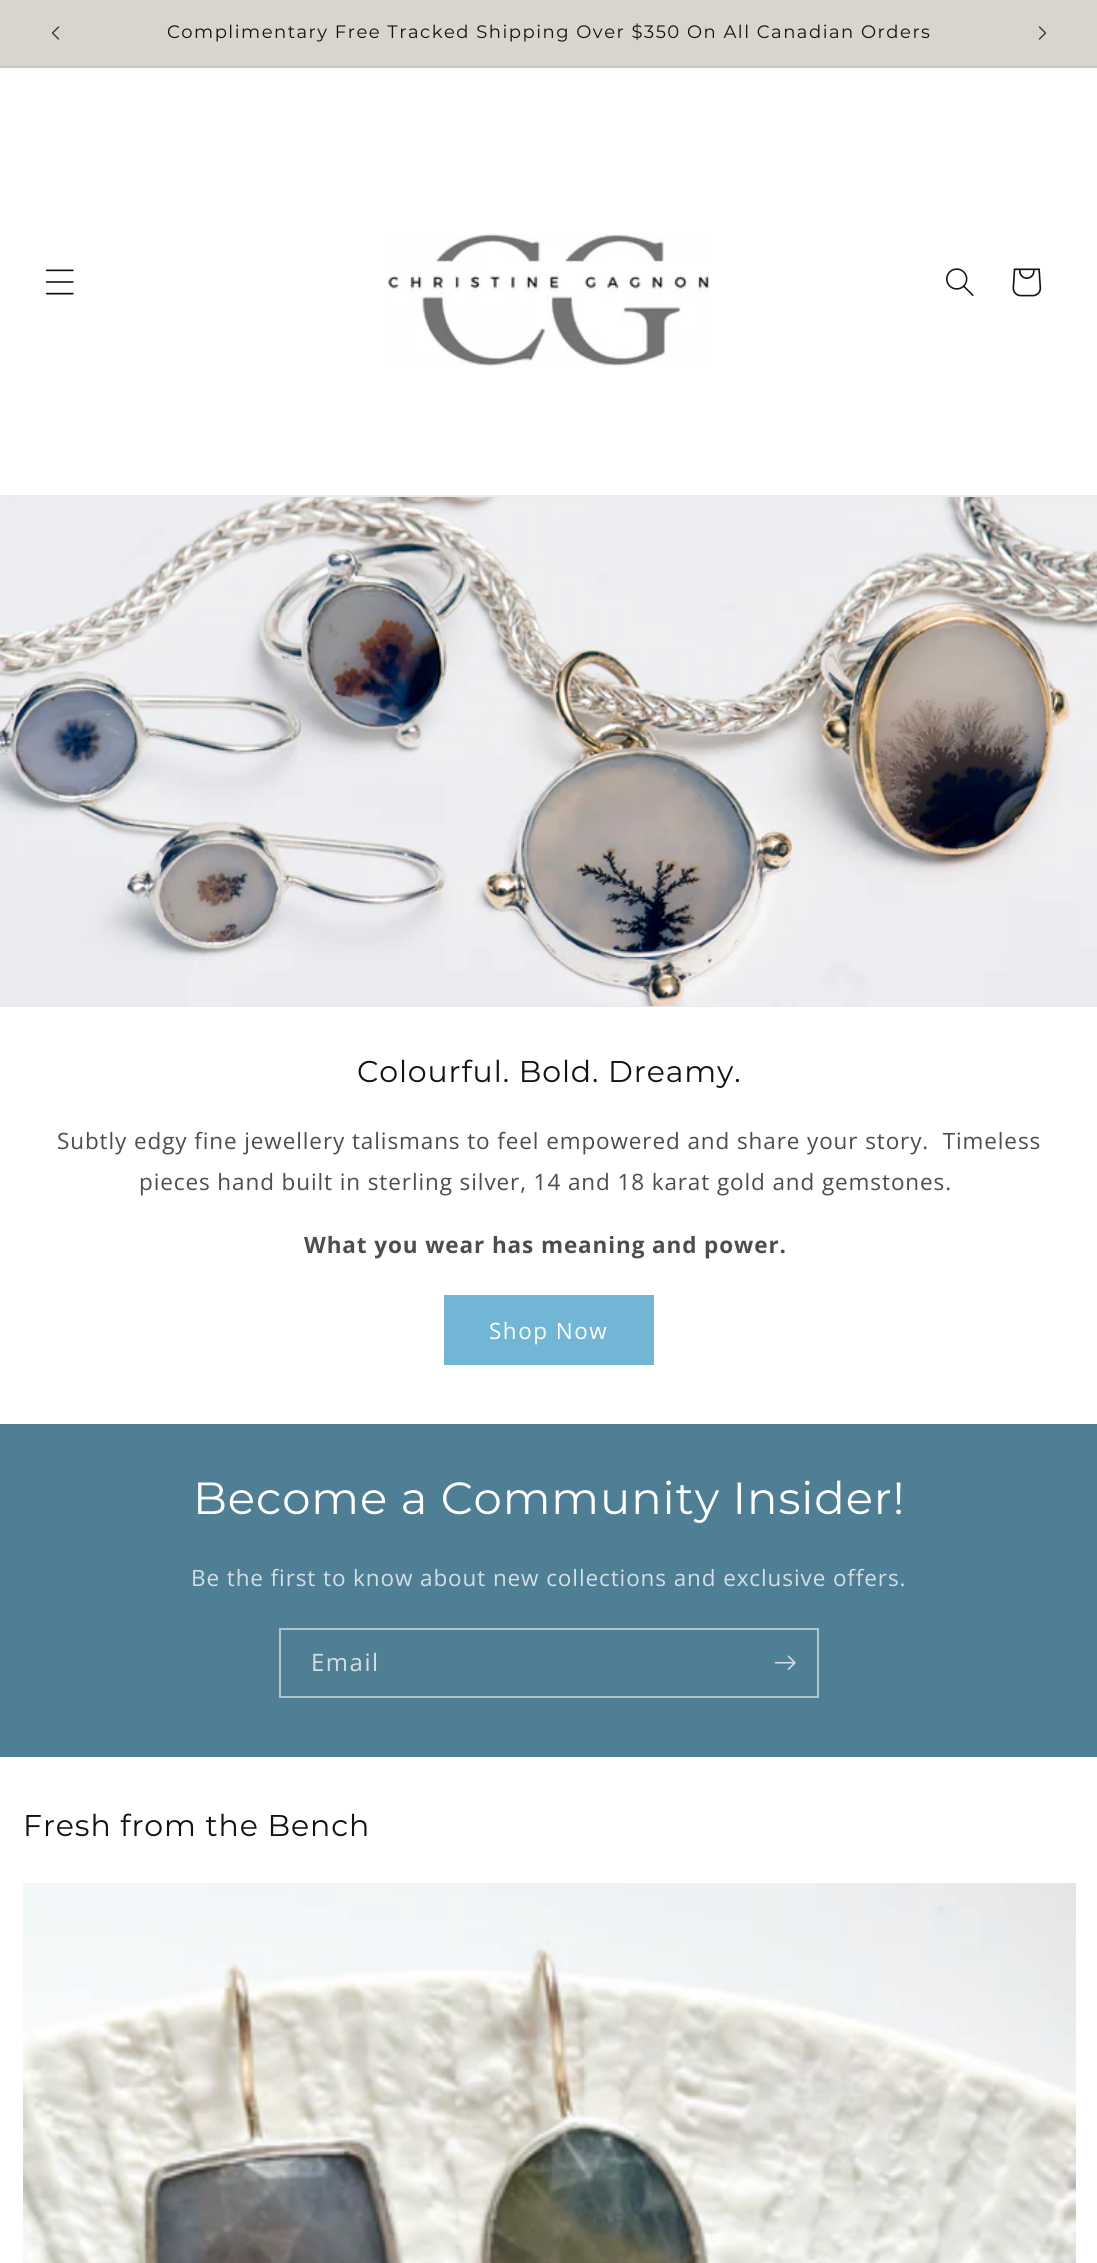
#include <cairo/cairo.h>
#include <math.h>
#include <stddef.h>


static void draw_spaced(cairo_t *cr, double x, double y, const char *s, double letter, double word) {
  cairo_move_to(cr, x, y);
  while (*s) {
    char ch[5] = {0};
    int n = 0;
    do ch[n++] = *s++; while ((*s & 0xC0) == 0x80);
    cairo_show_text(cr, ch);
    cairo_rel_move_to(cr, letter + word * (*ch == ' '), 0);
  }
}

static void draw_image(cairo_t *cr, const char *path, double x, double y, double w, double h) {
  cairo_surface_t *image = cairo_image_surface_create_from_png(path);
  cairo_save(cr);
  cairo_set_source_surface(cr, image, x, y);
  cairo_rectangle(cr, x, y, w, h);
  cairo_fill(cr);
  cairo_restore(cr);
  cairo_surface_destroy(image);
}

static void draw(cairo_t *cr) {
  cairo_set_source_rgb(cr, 1, 1, 1);
  cairo_paint(cr);
  cairo_set_source_rgb(cr, 216 / 255.0, 213 / 255.0, 206 / 255.0);
  cairo_rectangle(cr, 0, 0, 1097, 66);
  cairo_fill(cr);
  cairo_set_source_rgb(cr, 200 / 255.0, 197 / 255.0, 191 / 255.0);
  cairo_rectangle(cr, 0, 66, 1097, 2);
  cairo_fill(cr);
  draw_image(cr, "images/1.png", 51, 26, 9, 14);
  draw_image(cr, "images/2.png", 1038, 26, 9, 14);
  cairo_set_source_rgb(cr, 236 / 255.0, 236 / 255.0, 236 / 255.0);
  cairo_rectangle(cr, 0, 495, 1097, 2);
  cairo_fill(cr);
  draw_image(cr, "images/3.png", 45, 269, 29, 26);
  draw_image(cr, "images/4.png", 387, 233, 323, 134);
  draw_image(cr, "images/5.png", 946, 268, 28, 28);
  draw_image(cr, "images/6.png", 1012, 268, 30, 29);
  cairo_set_source_rgb(cr, 232 / 255.0, 232 / 255.0, 232 / 255.0);
  cairo_rectangle(cr, 0, 1006, 1097, 1);
  cairo_fill(cr);
  draw_image(cr, "images/7.png", 0, 497, 1097, 510);
  cairo_set_source_rgb(cr, 113 / 255.0, 182 / 255.0, 212 / 255.0);
  cairo_rectangle(cr, 444, 1295, 210, 70);
  cairo_fill(cr);
  cairo_set_source_rgb(cr, 79 / 255.0, 127 / 255.0, 148 / 255.0);
  cairo_rectangle(cr, 0, 1424, 1097, 333);
  cairo_fill(cr);
  cairo_rectangle(cr, 280, 1629, 538, 68);
  cairo_set_source_rgb(cr, 176 / 255.0, 197 / 255.0, 207 / 255.0);
  cairo_stroke(cr);
  draw_image(cr, "images/8.png", 774, 1655, 22, 15);
  draw_image(cr, "images/9.png", 23, 1883, 1053, 380);
  cairo_select_font_face(cr, "Montserrat", CAIRO_FONT_SLANT_NORMAL, CAIRO_FONT_WEIGHT_NORMAL);
  cairo_set_font_size(cr, 18);
  cairo_set_source_rgb(cr, 18 / 255.0, 18 / 255.0, 18 / 255.0);
  draw_spaced(cr, 167, 38, "Complimentary Free Tracked Shipping Over $350 On All Canadian Orders", 1.5, 0);
  cairo_set_font_size(cr, 30);
  draw_spaced(cr, 357, 1082, "Colourful. Bold. Dreamy.", 0.9, 0);
  cairo_select_font_face(cr, "Open Sans", CAIRO_FONT_SLANT_NORMAL, CAIRO_FONT_WEIGHT_NORMAL);
  cairo_set_font_size(cr, 22.5);
  cairo_set_source_rgb(cr, 77 / 255.0, 77 / 255.0, 77 / 255.0);
  draw_spaced(cr, 57, 1149, "Subtly edgy fine jewellery talismans to feel empowered and share your story.  Timeless", 0.9, 0);
  draw_spaced(cr, 139, 1190, "pieces hand built in sterling silver, 14 and 18 karat gold and gemstones.", 0.9, 0);
  cairo_select_font_face(cr, "Open Sans", CAIRO_FONT_SLANT_NORMAL, CAIRO_FONT_WEIGHT_BOLD);
  draw_spaced(cr, 304, 1253, "What you wear has meaning and power.", 0.9, 0);
  cairo_select_font_face(cr, "Open Sans", CAIRO_FONT_SLANT_NORMAL, CAIRO_FONT_WEIGHT_NORMAL);
  cairo_set_source_rgb(cr, 1, 1, 1);
  draw_spaced(cr, 489, 1339, "Shop Now", 1.5, 0);
  cairo_select_font_face(cr, "Montserrat", CAIRO_FONT_SLANT_NORMAL, CAIRO_FONT_WEIGHT_NORMAL);
  cairo_set_font_size(cr, 45);
  draw_spaced(cr, 193, 1514, "Become a Community Insider!", 0.9, 0);
  cairo_select_font_face(cr, "Open Sans", CAIRO_FONT_SLANT_NORMAL, CAIRO_FONT_WEIGHT_NORMAL);
  cairo_set_font_size(cr, 22.5);
  cairo_set_source_rgb(cr, 211 / 255.0, 223 / 255.0, 228 / 255.0);
  draw_spaced(cr, 191, 1586, "Be the first to know about new collections and exclusive offers.", 0.9, 0);
  cairo_set_font_size(cr, 24);
  draw_spaced(cr, 311, 1671, "Email", 1.5, 0);
  cairo_select_font_face(cr, "Montserrat", CAIRO_FONT_SLANT_NORMAL, CAIRO_FONT_WEIGHT_NORMAL);
  cairo_set_font_size(cr, 30);
  cairo_set_source_rgb(cr, 18 / 255.0, 18 / 255.0, 18 / 255.0);
  draw_spaced(cr, 23, 1836, "Fresh from the Bench", 0.9, 0);
}

int main(void) {
  cairo_surface_t *surface = cairo_image_surface_create(CAIRO_FORMAT_RGB24, 1097, 2263);
  cairo_t *cr = cairo_create(surface);
  cairo_font_options_t *options = cairo_font_options_create();
  cairo_font_options_set_hint_metrics(options, CAIRO_HINT_METRICS_OFF);
  cairo_font_options_set_hint_style(options, CAIRO_HINT_STYLE_NONE);
  cairo_set_font_options(cr, options);
  cairo_set_miter_limit(cr, 4);
  draw(cr);
  cairo_surface_write_to_png(surface, "out.png");
  cairo_font_options_destroy(options);
  cairo_destroy(cr);
  cairo_surface_destroy(surface);
  return 0;
}
